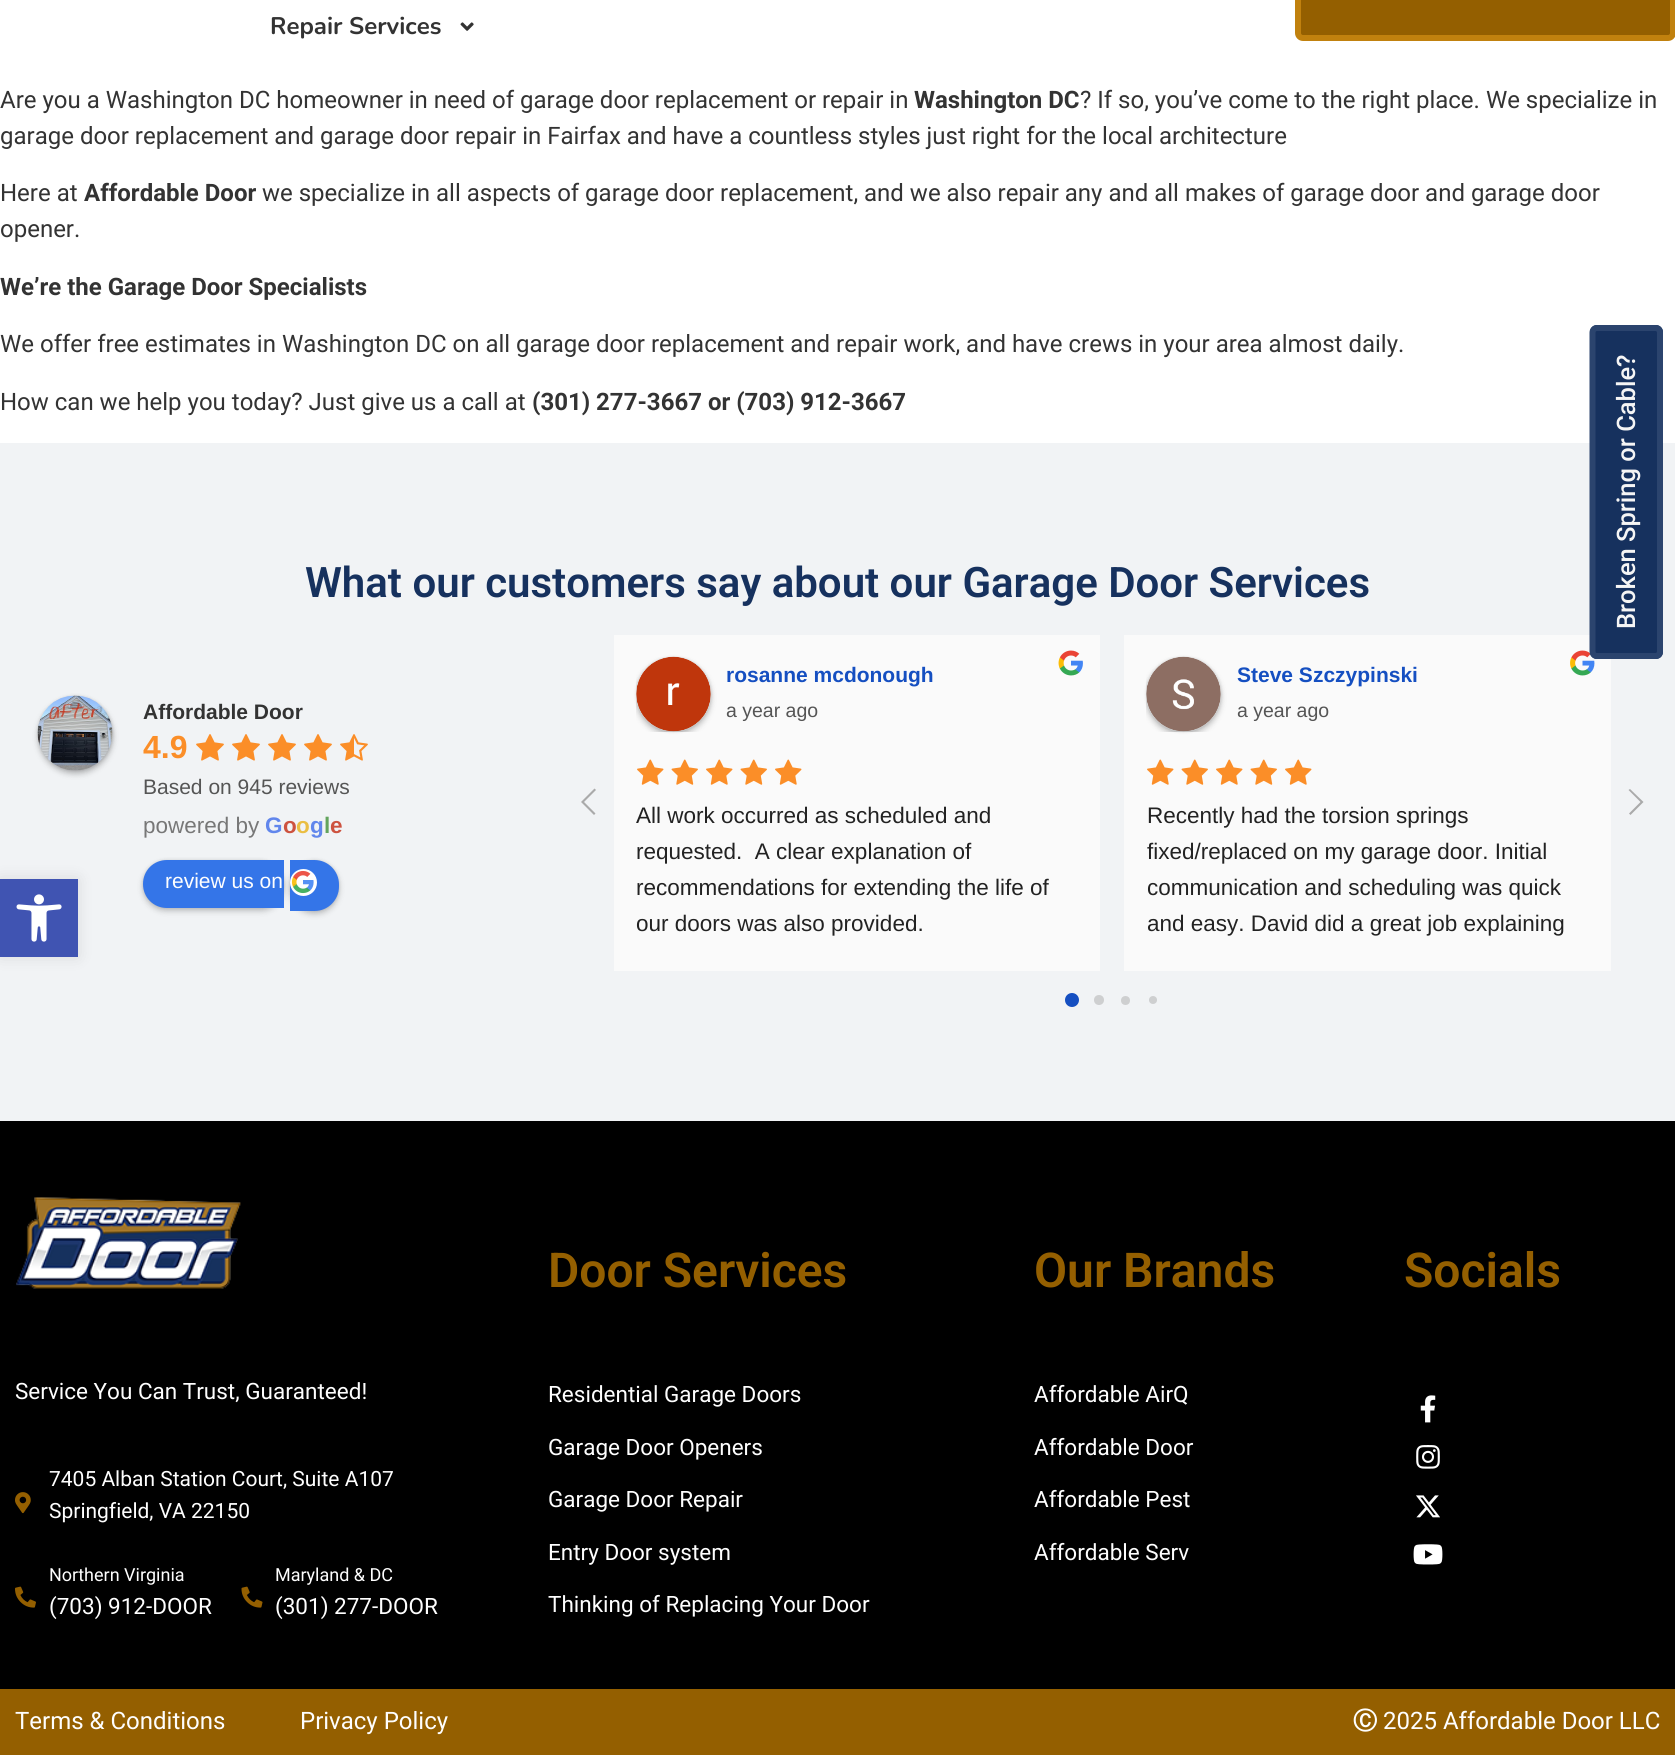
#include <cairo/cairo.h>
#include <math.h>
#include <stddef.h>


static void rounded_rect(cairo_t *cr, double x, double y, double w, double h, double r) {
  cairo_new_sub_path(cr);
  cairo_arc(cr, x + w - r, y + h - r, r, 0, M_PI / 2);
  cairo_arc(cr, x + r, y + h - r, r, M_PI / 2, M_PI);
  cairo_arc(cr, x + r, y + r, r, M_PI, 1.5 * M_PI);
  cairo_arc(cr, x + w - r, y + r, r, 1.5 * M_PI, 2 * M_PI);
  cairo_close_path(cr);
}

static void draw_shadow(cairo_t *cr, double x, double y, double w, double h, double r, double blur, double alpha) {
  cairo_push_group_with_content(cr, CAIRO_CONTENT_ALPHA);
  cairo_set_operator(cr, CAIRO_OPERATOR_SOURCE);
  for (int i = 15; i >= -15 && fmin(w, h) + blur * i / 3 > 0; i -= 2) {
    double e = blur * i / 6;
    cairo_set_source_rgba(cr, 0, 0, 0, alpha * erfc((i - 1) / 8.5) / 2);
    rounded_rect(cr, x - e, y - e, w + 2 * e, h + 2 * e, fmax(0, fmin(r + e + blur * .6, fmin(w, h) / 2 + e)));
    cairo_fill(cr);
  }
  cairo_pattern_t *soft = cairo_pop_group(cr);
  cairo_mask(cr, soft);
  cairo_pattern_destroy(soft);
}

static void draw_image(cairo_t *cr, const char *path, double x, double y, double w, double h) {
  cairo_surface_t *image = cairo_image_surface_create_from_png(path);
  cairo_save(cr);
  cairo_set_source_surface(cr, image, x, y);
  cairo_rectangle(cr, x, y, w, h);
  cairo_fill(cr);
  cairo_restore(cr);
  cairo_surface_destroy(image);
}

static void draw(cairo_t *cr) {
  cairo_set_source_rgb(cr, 1, 1, 1);
  cairo_paint(cr);
  draw_image(cr, "images/1.png", 460, 22, 14, 9);
  cairo_set_source_rgb(cr, 148 / 255.0, 95 / 255.0, 0);
  rounded_rect(cr, 1298, -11, 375, 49, 5);
  cairo_fill_preserve(cr);
  cairo_set_source_rgb(cr, 193 / 255.0, 129 / 255.0, 14 / 255.0);
  cairo_set_line_width(cr, 6);
  cairo_stroke(cr);
  cairo_set_source_rgb(cr, 0, 0, 0);
  cairo_rectangle(cr, 0, 1121, 1675, 568);
  cairo_fill(cr);
  cairo_set_source_rgb(cr, 241 / 255.0, 243 / 255.0, 245 / 255.0);
  cairo_rectangle(cr, 0, 443, 1675, 678);
  cairo_fill(cr);
  cairo_set_source_rgb(cr, 250 / 255.0, 250 / 255.0, 250 / 255.0);
  cairo_rectangle(cr, 1124, 635, 487, 336);
  cairo_fill(cr);
  draw_image(cr, "images/10.png", 1570, 650, 25, 26);
  cairo_set_source_rgb(cr, 22 / 255.0, 49 / 255.0, 94 / 255.0);
  cairo_new_path(cr);
  cairo_move_to(cr, 1590, 652);
  cairo_line_to(cr, 1590, 332);
  cairo_curve_to(cr, 1590, 328, 1593, 325, 1597, 325);
  cairo_line_to(cr, 1656, 325);
  cairo_curve_to(cr, 1660, 325, 1663, 328, 1663, 332);
  cairo_line_to(cr, 1663, 652);
  cairo_curve_to(cr, 1663, 656, 1660, 659, 1656, 659);
  cairo_line_to(cr, 1597, 659);
  cairo_curve_to(cr, 1593, 659, 1590, 656, 1590, 652);
  cairo_close_path(cr);
  cairo_fill(cr);
  cairo_new_path(cr);
  cairo_move_to(cr, 1592.5, 651.5);
  cairo_line_to(cr, 1592.5, 332.5);
  cairo_curve_to(cr, 1592.5, 330, 1594.5, 328, 1597, 328);
  cairo_line_to(cr, 1655.5, 328);
  cairo_curve_to(cr, 1658, 328, 1660, 330, 1660, 332.5);
  cairo_line_to(cr, 1660, 651.5);
  cairo_curve_to(cr, 1660, 654, 1658, 656, 1655.5, 656);
  cairo_line_to(cr, 1597, 656);
  cairo_curve_to(cr, 1594.5, 656, 1592.5, 654, 1592.5, 651.5);
  cairo_close_path(cr);
  cairo_set_source_rgb(cr, 43 / 255.0, 68 / 255.0, 110 / 255.0);
  cairo_stroke(cr);
  cairo_set_source_rgb(cr, 0, 0, 0);
  draw_shadow(cr, 38, 699, 75, 75, 37.5, 3, 0.24);
  draw_shadow(cr, 38, 696, 75, 75, 37.5, 1.5, 0.12);
  draw_image(cr, "images/2.png", 37, 695, 76, 76);
  draw_image(cr, "images/3.png", 196, 734, 28, 27);
  draw_image(cr, "images/3.png", 232, 734, 28, 27);
  draw_image(cr, "images/3.png", 268, 734, 28, 27);
  draw_image(cr, "images/3.png", 304, 734, 28, 27);
  draw_image(cr, "images/4.png", 340, 734, 28, 27);
  cairo_set_source_rgb(cr, 24 / 255.0, 24 / 255.0, 25 / 255.0);
  draw_shadow(cr, 143, 863, 141, 48, 24, 3, 0.24);
  draw_shadow(cr, 143, 860, 141, 48, 24, 1.5, 0.12);
  cairo_set_source_rgb(cr, 52 / 255.0, 117 / 255.0, 232 / 255.0);
  cairo_new_path(cr);
  cairo_move_to(cr, 167, 860);
  cairo_line_to(cr, 284, 860);
  cairo_line_to(cr, 284, 908);
  cairo_line_to(cr, 167, 908);
  cairo_curve_to(cr, 153.5, 908, 143, 897.5, 143, 884);
  cairo_curve_to(cr, 143, 870.5, 153.5, 860, 167, 860);
  cairo_close_path(cr);
  cairo_fill(cr);
  cairo_set_source_rgb(cr, 24 / 255.0, 24 / 255.0, 25 / 255.0);
  draw_shadow(cr, 290, 863, 49, 51, 24.5, 3, 0.24);
  draw_shadow(cr, 290, 860, 49, 51, 24.5, 1.5, 0.12);
  cairo_set_source_rgb(cr, 52 / 255.0, 117 / 255.0, 232 / 255.0);
  cairo_new_path(cr);
  cairo_move_to(cr, 290, 860);
  cairo_line_to(cr, 314.5, 860);
  cairo_curve_to(cr, 328, 860, 339, 871, 339, 884.5);
  cairo_line_to(cr, 339, 886.5);
  cairo_curve_to(cr, 339, 900, 328, 911, 314.5, 911);
  cairo_line_to(cr, 290, 911);
  cairo_close_path(cr);
  cairo_fill(cr);
  cairo_set_source_rgb(cr, 254 / 255.0, 254 / 255.0, 254 / 255.0);
  cairo_arc(cr, 303.5, 882.5, 13.5, 0, 2 * M_PI);
  cairo_fill(cr);
  draw_image(cr, "images/5.png", 291, 870, 23, 24);
  cairo_set_source_rgb(cr, 170 / 255.0, 170 / 255.0, 170 / 255.0);
  cairo_new_path(cr);
  cairo_move_to(cr, 594, 815);
  cairo_line_to(cr, 581, 802);
  cairo_line_to(cr, 594.5, 788.5);
  cairo_line_to(cr, 596, 790);
  cairo_line_to(cr, 584, 802);
  cairo_line_to(cr, 595.5, 813.5);
  cairo_close_path(cr);
  cairo_fill(cr);
  cairo_set_source_rgb(cr, 250 / 255.0, 250 / 255.0, 250 / 255.0);
  cairo_rectangle(cr, 614, 635, 486, 336);
  cairo_fill(cr);
  draw_image(cr, "images/6.png", 1058, 650, 25, 26);
  cairo_save(cr);
  cairo_rectangle(cr, 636, 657, 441, 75);
  cairo_clip(cr);
  cairo_set_source_rgb(cr, 0, 0, 0);
  draw_shadow(cr, 636, 660, 75, 75, 37.5, 3, 0.24);
  cairo_restore(cr);
  cairo_save(cr);
  cairo_set_fill_rule(cr, CAIRO_FILL_RULE_EVEN_ODD);
  cairo_new_path(cr);
  cairo_move_to(cr, 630, 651);
  cairo_line_to(cr, 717, 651);
  cairo_line_to(cr, 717, 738);
  cairo_line_to(cr, 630, 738);
  cairo_close_path(cr);
  cairo_move_to(cr, 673.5, 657);
  cairo_curve_to(cr, 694, 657, 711, 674, 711, 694.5);
  cairo_curve_to(cr, 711, 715, 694, 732, 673.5, 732);
  cairo_curve_to(cr, 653, 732, 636, 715, 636, 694.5);
  cairo_curve_to(cr, 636, 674, 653, 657, 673.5, 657);
  cairo_close_path(cr);
  cairo_clip(cr);
  cairo_set_source_rgb(cr, 0, 0, 0);
  draw_shadow(cr, 636, 657, 75, 75, 37.5, 1.5, 0.12);
  cairo_restore(cr);
  draw_image(cr, "images/7.png", 636, 656, 75, 76);
  draw_image(cr, "images/8.png", 637, 759, 27, 26);
  draw_image(cr, "images/9.png", 671, 759, 27, 26);
  draw_image(cr, "images/8.png", 706, 759, 27, 26);
  draw_image(cr, "images/9.png", 740, 759, 27, 26);
  draw_image(cr, "images/8.png", 775, 759, 27, 26);
  cairo_save(cr);
  cairo_rectangle(cr, 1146, 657, 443, 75);
  cairo_clip(cr);
  cairo_set_source_rgb(cr, 0, 0, 0);
  draw_shadow(cr, 1146, 660, 75, 75, 37.5, 3, 0.24);
  cairo_restore(cr);
  cairo_save(cr);
  cairo_set_fill_rule(cr, CAIRO_FILL_RULE_EVEN_ODD);
  cairo_new_path(cr);
  cairo_move_to(cr, 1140, 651);
  cairo_line_to(cr, 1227, 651);
  cairo_line_to(cr, 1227, 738);
  cairo_line_to(cr, 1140, 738);
  cairo_close_path(cr);
  cairo_move_to(cr, 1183.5, 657);
  cairo_curve_to(cr, 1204, 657, 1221, 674, 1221, 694.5);
  cairo_curve_to(cr, 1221, 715, 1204, 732, 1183.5, 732);
  cairo_curve_to(cr, 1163, 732, 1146, 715, 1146, 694.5);
  cairo_curve_to(cr, 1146, 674, 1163, 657, 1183.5, 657);
  cairo_close_path(cr);
  cairo_clip(cr);
  cairo_set_source_rgb(cr, 0, 0, 0);
  draw_shadow(cr, 1146, 657, 75, 75, 37.5, 1.5, 0.12);
  cairo_restore(cr);
  draw_image(cr, "images/11.png", 1146, 656, 75, 76);
  draw_image(cr, "images/8.png", 1147, 759, 27, 26);
  draw_image(cr, "images/9.png", 1181, 759, 27, 26);
  draw_image(cr, "images/8.png", 1216, 759, 27, 26);
  draw_image(cr, "images/9.png", 1250, 759, 27, 26);
  draw_image(cr, "images/8.png", 1285, 759, 27, 26);
  cairo_set_source_rgb(cr, 170 / 255.0, 170 / 255.0, 170 / 255.0);
  cairo_new_path(cr);
  cairo_move_to(cr, 1630.5, 815);
  cairo_line_to(cr, 1629, 813.5);
  cairo_line_to(cr, 1640.5, 802);
  cairo_line_to(cr, 1628.5, 790);
  cairo_line_to(cr, 1630, 789);
  cairo_line_to(cr, 1643.5, 802);
  cairo_close_path(cr);
  cairo_fill(cr);
  cairo_set_source_rgb(cr, 21 / 255.0, 79 / 255.0, 193 / 255.0);
  cairo_arc(cr, 1072, 1000, 7, 0, 2 * M_PI);
  cairo_fill(cr);
  cairo_set_source_rgb(cr, 206 / 255.0, 207 / 255.0, 208 / 255.0);
  cairo_arc(cr, 1099, 1000, 5, 0, 2 * M_PI);
  cairo_fill(cr);
  cairo_arc(cr, 1125.5, 1000.5, 4.5, 0, 2 * M_PI);
  cairo_fill(cr);
  cairo_arc(cr, 1153, 1000, 4, 0, 2 * M_PI);
  cairo_fill(cr);
  draw_image(cr, "images/12.png", 1420, 1395, 16, 28);
  draw_image(cr, "images/13.png", 1416, 1445, 24, 24);
  draw_image(cr, "images/14.png", 1416, 1495, 24, 23);
  draw_image(cr, "images/15.png", 1413, 1544, 30, 21);
  draw_image(cr, "images/16.png", 16, 1197, 225, 92);
  draw_image(cr, "images/17.png", 15, 1492, 16, 22);
  draw_image(cr, "images/18.png", 15, 1586, 21, 22);
  draw_image(cr, "images/19.png", 241, 1586, 22, 22);
  cairo_set_source_rgb(cr, 148 / 255.0, 95 / 255.0, 0);
  cairo_rectangle(cr, 0, 1689, 1675, 66);
  cairo_fill(cr);
  cairo_set_source_rgb(cr, 0, 0, 0);
  draw_shadow(cr, 0, 879, 78, 78, 0, 7.5, 0.1);
  cairo_set_source_rgb(cr, 64 / 255.0, 84 / 255.0, 178 / 255.0);
  cairo_rectangle(cr, 0, 879, 78, 78);
  cairo_fill(cr);
  draw_image(cr, "images/20.png", 16, 894, 46, 48);
  cairo_select_font_face(cr, "Nunito", CAIRO_FONT_SLANT_NORMAL, CAIRO_FONT_WEIGHT_BOLD);
  cairo_set_font_size(cr, 24);
  cairo_set_source_rgb(cr, 51 / 255.0, 51 / 255.0, 51 / 255.0);
  cairo_move_to(cr, 270, 34);
  cairo_show_text(cr, "Repair Services");
  cairo_select_font_face(cr, "Roboto", CAIRO_FONT_SLANT_NORMAL, CAIRO_FONT_WEIGHT_NORMAL);
  cairo_move_to(cr, 0, 108);
  cairo_show_text(cr, "Are you a Washington DC homeowner in need of garage door replacement or repair in");
  cairo_select_font_face(cr, "Roboto", CAIRO_FONT_SLANT_NORMAL, CAIRO_FONT_WEIGHT_BOLD);
  cairo_move_to(cr, 914, 108);
  cairo_show_text(cr, "Washington DC");
  cairo_select_font_face(cr, "Roboto", CAIRO_FONT_SLANT_NORMAL, CAIRO_FONT_WEIGHT_NORMAL);
  cairo_move_to(cr, 1080, 108);
  cairo_show_text(cr, "? If so, you’ve come to the right place. We specialize in");
  cairo_move_to(cr, 0, 144);
  cairo_show_text(cr, "garage door replacement and garage door repair in Fairfax and have a countless styles just right for the local architecture");
  cairo_move_to(cr, 0, 201);
  cairo_show_text(cr, "Here at");
  cairo_select_font_face(cr, "Roboto", CAIRO_FONT_SLANT_NORMAL, CAIRO_FONT_WEIGHT_BOLD);
  cairo_move_to(cr, 84, 201);
  cairo_show_text(cr, "Affordable Door");
  cairo_select_font_face(cr, "Roboto", CAIRO_FONT_SLANT_NORMAL, CAIRO_FONT_WEIGHT_NORMAL);
  cairo_move_to(cr, 262, 201);
  cairo_show_text(cr, "we specialize in all aspects of garage door replacement, and we also repair any and all makes of garage door and garage door");
  cairo_move_to(cr, 0, 237);
  cairo_show_text(cr, "opener.");
  cairo_select_font_face(cr, "Roboto", CAIRO_FONT_SLANT_NORMAL, CAIRO_FONT_WEIGHT_BOLD);
  cairo_move_to(cr, 0, 295);
  cairo_show_text(cr, "We’re the Garage Door Specialists");
  cairo_select_font_face(cr, "Roboto", CAIRO_FONT_SLANT_NORMAL, CAIRO_FONT_WEIGHT_NORMAL);
  cairo_move_to(cr, 0, 352);
  cairo_show_text(cr, "We offer free estimates in Washington DC on all garage door replacement and repair work, and have crews in your area almost daily.");
  cairo_select_font_face(cr, "Roboto Medium", CAIRO_FONT_SLANT_NORMAL, CAIRO_FONT_WEIGHT_NORMAL);
  cairo_set_font_size(cr, 25.5);
  cairo_set_source_rgb(cr, 245 / 255.0, 245 / 255.0, 245 / 255.0);
  cairo_save(cr);
  cairo_translate(cr, 1635, 629);
  cairo_rotate(cr, -90 * M_PI / 180);
  cairo_move_to(cr, 0, 0);
  cairo_show_text(cr, "Broken Spring or Cable?");
  cairo_restore(cr);
  cairo_select_font_face(cr, "Roboto SemiBold", CAIRO_FONT_SLANT_NORMAL, CAIRO_FONT_WEIGHT_NORMAL);
  cairo_set_font_size(cr, 42);
  cairo_set_source_rgb(cr, 22 / 255.0, 49 / 255.0, 94 / 255.0);
  cairo_move_to(cr, 305, 597);
  cairo_show_text(cr, "What our customers say about our Garage Door Services");
  cairo_select_font_face(cr, "Liberation Sans", CAIRO_FONT_SLANT_NORMAL, CAIRO_FONT_WEIGHT_BOLD);
  cairo_set_font_size(cr, 21);
  cairo_set_source_rgb(cr, 51 / 255.0, 51 / 255.0, 51 / 255.0);
  cairo_move_to(cr, 143, 719);
  cairo_show_text(cr, "Affordable Door");
  cairo_set_font_size(cr, 32);
  cairo_set_source_rgb(cr, 251 / 255.0, 142 / 255.0, 40 / 255.0);
  cairo_move_to(cr, 143, 758);
  cairo_show_text(cr, "4.9");
  cairo_select_font_face(cr, "Liberation Sans", CAIRO_FONT_SLANT_NORMAL, CAIRO_FONT_WEIGHT_NORMAL);
  cairo_set_font_size(cr, 21);
  cairo_set_source_rgb(cr, 85 / 255.0, 85 / 255.0, 85 / 255.0);
  cairo_move_to(cr, 143, 794);
  cairo_show_text(cr, "Based on 945 reviews");
  cairo_set_font_size(cr, 22.5);
  cairo_set_source_rgb(cr, 119 / 255.0, 119 / 255.0, 119 / 255.0);
  cairo_move_to(cr, 143, 833);
  cairo_show_text(cr, "powered by");
  cairo_select_font_face(cr, "Liberation Sans", CAIRO_FONT_SLANT_NORMAL, CAIRO_FONT_WEIGHT_BOLD);
  cairo_set_source_rgb(cr, 97 / 255.0, 134 / 255.0, 236 / 255.0);
  cairo_move_to(cr, 265, 833);
  cairo_show_text(cr, "G");
  cairo_set_source_rgb(cr, 205 / 255.0, 82 / 255.0, 63 / 255.0);
  cairo_move_to(cr, 283, 833);
  cairo_show_text(cr, "o");
  cairo_set_source_rgb(cr, 234 / 255.0, 190 / 255.0, 67 / 255.0);
  cairo_move_to(cr, 296, 833);
  cairo_show_text(cr, "o");
  cairo_set_source_rgb(cr, 97 / 255.0, 134 / 255.0, 236 / 255.0);
  cairo_move_to(cr, 310, 833);
  cairo_show_text(cr, "g");
  cairo_set_source_rgb(cr, 99 / 255.0, 164 / 255.0, 93 / 255.0);
  cairo_move_to(cr, 324, 833);
  cairo_show_text(cr, "l");
  cairo_set_source_rgb(cr, 205 / 255.0, 82 / 255.0, 63 / 255.0);
  cairo_move_to(cr, 330, 833);
  cairo_show_text(cr, "e");
  cairo_select_font_face(cr, "Liberation Sans", CAIRO_FONT_SLANT_NORMAL, CAIRO_FONT_WEIGHT_NORMAL);
  cairo_set_font_size(cr, 21);
  cairo_set_source_rgb(cr, 254 / 255.0, 254 / 255.0, 254 / 255.0);
  cairo_move_to(cr, 165, 888);
  cairo_show_text(cr, "review us on");
  cairo_select_font_face(cr, "Liberation Sans", CAIRO_FONT_SLANT_NORMAL, CAIRO_FONT_WEIGHT_BOLD);
  cairo_set_source_rgb(cr, 21 / 255.0, 79 / 255.0, 193 / 255.0);
  cairo_move_to(cr, 726, 682);
  cairo_show_text(cr, "rosanne mcdonough");
  cairo_select_font_face(cr, "Liberation Sans", CAIRO_FONT_SLANT_NORMAL, CAIRO_FONT_WEIGHT_NORMAL);
  cairo_set_font_size(cr, 19.5);
  cairo_set_source_rgb(cr, 85 / 255.0, 85 / 255.0, 85 / 255.0);
  cairo_move_to(cr, 726, 717);
  cairo_show_text(cr, "a year ago");
  cairo_set_font_size(cr, 22.5);
  cairo_set_source_rgb(cr, 34 / 255.0, 34 / 255.0, 34 / 255.0);
  cairo_move_to(cr, 636, 823);
  cairo_show_text(cr, "All work occurred as scheduled and");
  cairo_move_to(cr, 636, 859);
  cairo_show_text(cr, "requested.  A clear explanation of");
  cairo_move_to(cr, 636, 895);
  cairo_show_text(cr, "recommendations for extending the life of");
  cairo_move_to(cr, 636, 931);
  cairo_show_text(cr, "our doors was also provided.");
  cairo_select_font_face(cr, "Liberation Sans", CAIRO_FONT_SLANT_NORMAL, CAIRO_FONT_WEIGHT_BOLD);
  cairo_set_font_size(cr, 21);
  cairo_set_source_rgb(cr, 21 / 255.0, 79 / 255.0, 193 / 255.0);
  cairo_move_to(cr, 1237, 682);
  cairo_show_text(cr, "Steve Szczypinski");
  cairo_select_font_face(cr, "Liberation Sans", CAIRO_FONT_SLANT_NORMAL, CAIRO_FONT_WEIGHT_NORMAL);
  cairo_set_font_size(cr, 19.5);
  cairo_set_source_rgb(cr, 85 / 255.0, 85 / 255.0, 85 / 255.0);
  cairo_move_to(cr, 1237, 717);
  cairo_show_text(cr, "a year ago");
  cairo_set_font_size(cr, 22.5);
  cairo_set_source_rgb(cr, 34 / 255.0, 34 / 255.0, 34 / 255.0);
  cairo_move_to(cr, 1147, 823);
  cairo_show_text(cr, "Recently had the torsion springs");
  cairo_move_to(cr, 1147, 859);
  cairo_show_text(cr, "fixed/replaced on my garage door. Initial");
  cairo_move_to(cr, 1147, 895);
  cairo_show_text(cr, "communication and scheduling was quick");
  cairo_move_to(cr, 1147, 931);
  cairo_show_text(cr, "and easy. David did a great job explaining");
  cairo_select_font_face(cr, "Roboto SemiBold", CAIRO_FONT_SLANT_NORMAL, CAIRO_FONT_WEIGHT_NORMAL);
  cairo_set_font_size(cr, 48);
  cairo_set_source_rgb(cr, 148 / 255.0, 95 / 255.0, 0);
  cairo_move_to(cr, 548, 1287);
  cairo_show_text(cr, "Door Services");
  cairo_select_font_face(cr, "Roboto", CAIRO_FONT_SLANT_NORMAL, CAIRO_FONT_WEIGHT_NORMAL);
  cairo_set_font_size(cr, 22.5);
  cairo_set_source_rgb(cr, 254 / 255.0, 254 / 255.0, 254 / 255.0);
  cairo_move_to(cr, 548, 1402);
  cairo_show_text(cr, "Residential Garage Doors");
  cairo_move_to(cr, 548, 1455);
  cairo_show_text(cr, "Garage Door Openers");
  cairo_move_to(cr, 548, 1507);
  cairo_show_text(cr, "Garage Door Repair");
  cairo_move_to(cr, 548, 1560);
  cairo_show_text(cr, "Entry Door system");
  cairo_move_to(cr, 548, 1612);
  cairo_show_text(cr, "Thinking of Replacing Your Door");
  cairo_select_font_face(cr, "Roboto SemiBold", CAIRO_FONT_SLANT_NORMAL, CAIRO_FONT_WEIGHT_NORMAL);
  cairo_set_font_size(cr, 48);
  cairo_set_source_rgb(cr, 148 / 255.0, 95 / 255.0, 0);
  cairo_move_to(cr, 1034, 1287);
  cairo_show_text(cr, "Our Brands");
  cairo_select_font_face(cr, "Roboto", CAIRO_FONT_SLANT_NORMAL, CAIRO_FONT_WEIGHT_NORMAL);
  cairo_set_font_size(cr, 22.5);
  cairo_set_source_rgb(cr, 254 / 255.0, 254 / 255.0, 254 / 255.0);
  cairo_move_to(cr, 1034, 1402);
  cairo_show_text(cr, "Affordable AirQ");
  cairo_move_to(cr, 1034, 1455);
  cairo_show_text(cr, "Affordable Door");
  cairo_move_to(cr, 1034, 1507);
  cairo_show_text(cr, "Affordable Pest");
  cairo_move_to(cr, 1034, 1560);
  cairo_show_text(cr, "Affordable Serv");
  cairo_select_font_face(cr, "Roboto SemiBold", CAIRO_FONT_SLANT_NORMAL, CAIRO_FONT_WEIGHT_NORMAL);
  cairo_set_font_size(cr, 48);
  cairo_set_source_rgb(cr, 148 / 255.0, 95 / 255.0, 0);
  cairo_move_to(cr, 1404, 1287);
  cairo_show_text(cr, "Socials");
  cairo_select_font_face(cr, "Roboto", CAIRO_FONT_SLANT_NORMAL, CAIRO_FONT_WEIGHT_NORMAL);
  cairo_set_font_size(cr, 22.5);
  cairo_set_source_rgb(cr, 254 / 255.0, 254 / 255.0, 254 / 255.0);
  cairo_move_to(cr, 15, 1399);
  cairo_show_text(cr, "Service You Can Trust, Guaranteed!");
  cairo_set_font_size(cr, 21);
  cairo_move_to(cr, 49, 1486);
  cairo_show_text(cr, "7405 Alban Station Court, Suite A107");
  cairo_move_to(cr, 49, 1518);
  cairo_show_text(cr, "Springfield, VA 22150");
  cairo_set_font_size(cr, 18);
  cairo_move_to(cr, 49, 1581);
  cairo_show_text(cr, "Northern Virginia");
  cairo_set_font_size(cr, 22.5);
  cairo_move_to(cr, 49, 1614);
  cairo_show_text(cr, "(703) 912-DOOR");
  cairo_set_font_size(cr, 18);
  cairo_move_to(cr, 275, 1581);
  cairo_show_text(cr, "Maryland & DC");
  cairo_set_font_size(cr, 22.5);
  cairo_move_to(cr, 275, 1614);
  cairo_show_text(cr, "(301) 277-DOOR");
  cairo_set_font_size(cr, 24);
  cairo_move_to(cr, 15, 1729);
  cairo_show_text(cr, "Terms & Conditions");
  cairo_move_to(cr, 300, 1729);
  cairo_show_text(cr, "Privacy Policy");
  cairo_select_font_face(cr, "WenQuanYi Zen Hei", CAIRO_FONT_SLANT_NORMAL, CAIRO_FONT_WEIGHT_BOLD);
  cairo_move_to(cr, 1353, 1729);
  cairo_show_text(cr, "Ⓒ");
  cairo_select_font_face(cr, "Roboto", CAIRO_FONT_SLANT_NORMAL, CAIRO_FONT_WEIGHT_NORMAL);
  cairo_move_to(cr, 1383, 1729);
  cairo_show_text(cr, "2025 Affordable Door LLC");
  cairo_set_source_rgb(cr, 51 / 255.0, 51 / 255.0, 51 / 255.0);
  cairo_move_to(cr, 0, 410);
  cairo_show_text(cr, "How can we help you today? Just give us a call at");
  cairo_select_font_face(cr, "Roboto", CAIRO_FONT_SLANT_NORMAL, CAIRO_FONT_WEIGHT_BOLD);
  cairo_move_to(cr, 532, 410);
  cairo_show_text(cr, "(301) 277-3667 or (703) 912-3667");
}

int main(void) {
  cairo_surface_t *surface = cairo_image_surface_create(CAIRO_FORMAT_RGB24, 1675, 1756);
  cairo_t *cr = cairo_create(surface);
  cairo_font_options_t *options = cairo_font_options_create();
  cairo_font_options_set_hint_metrics(options, CAIRO_HINT_METRICS_OFF);
  cairo_font_options_set_hint_style(options, CAIRO_HINT_STYLE_NONE);
  cairo_set_font_options(cr, options);
  cairo_set_miter_limit(cr, 4);
  draw(cr);
  cairo_surface_write_to_png(surface, "out.png");
  cairo_font_options_destroy(options);
  cairo_destroy(cr);
  cairo_surface_destroy(surface);
  return 0;
}
